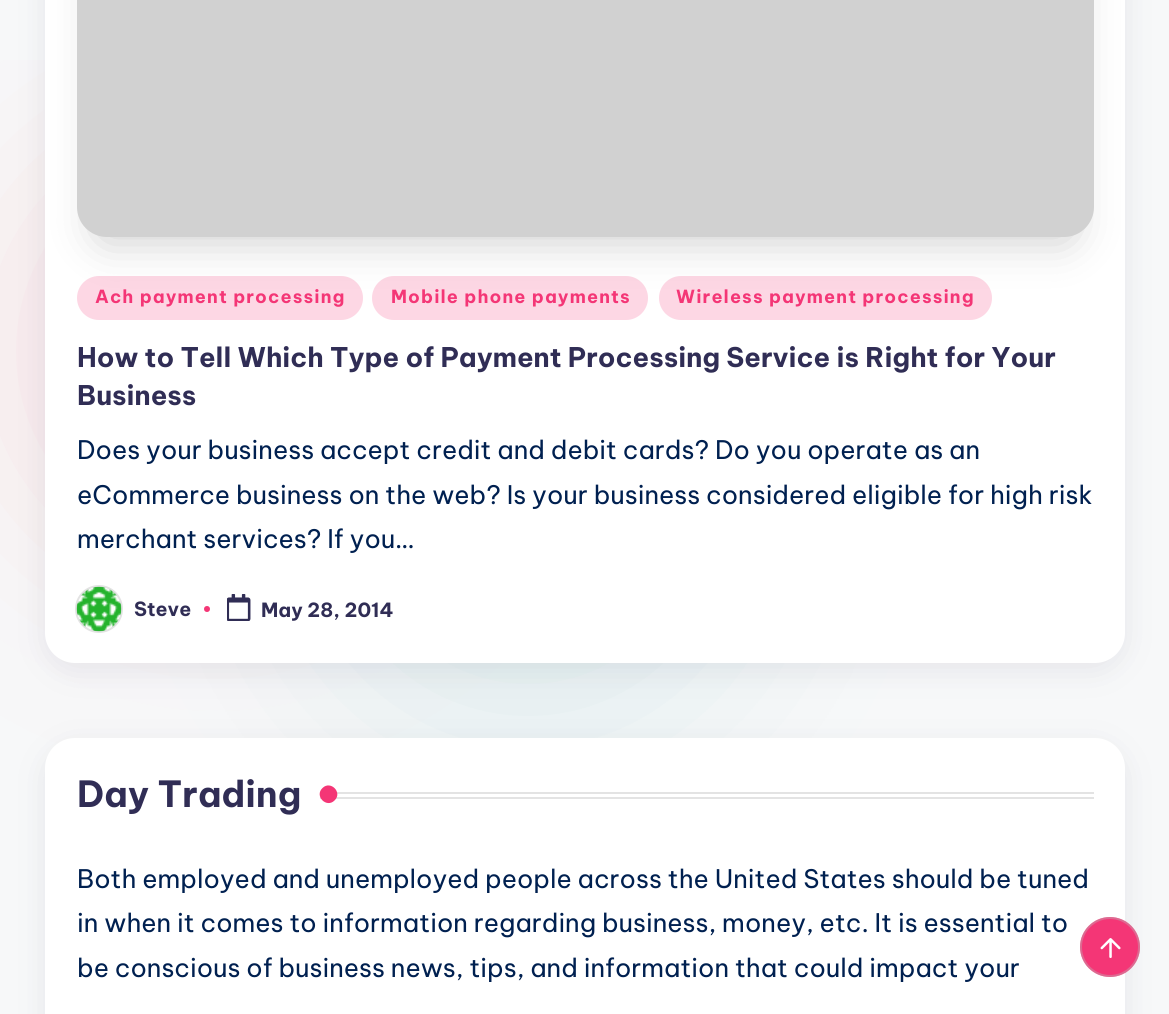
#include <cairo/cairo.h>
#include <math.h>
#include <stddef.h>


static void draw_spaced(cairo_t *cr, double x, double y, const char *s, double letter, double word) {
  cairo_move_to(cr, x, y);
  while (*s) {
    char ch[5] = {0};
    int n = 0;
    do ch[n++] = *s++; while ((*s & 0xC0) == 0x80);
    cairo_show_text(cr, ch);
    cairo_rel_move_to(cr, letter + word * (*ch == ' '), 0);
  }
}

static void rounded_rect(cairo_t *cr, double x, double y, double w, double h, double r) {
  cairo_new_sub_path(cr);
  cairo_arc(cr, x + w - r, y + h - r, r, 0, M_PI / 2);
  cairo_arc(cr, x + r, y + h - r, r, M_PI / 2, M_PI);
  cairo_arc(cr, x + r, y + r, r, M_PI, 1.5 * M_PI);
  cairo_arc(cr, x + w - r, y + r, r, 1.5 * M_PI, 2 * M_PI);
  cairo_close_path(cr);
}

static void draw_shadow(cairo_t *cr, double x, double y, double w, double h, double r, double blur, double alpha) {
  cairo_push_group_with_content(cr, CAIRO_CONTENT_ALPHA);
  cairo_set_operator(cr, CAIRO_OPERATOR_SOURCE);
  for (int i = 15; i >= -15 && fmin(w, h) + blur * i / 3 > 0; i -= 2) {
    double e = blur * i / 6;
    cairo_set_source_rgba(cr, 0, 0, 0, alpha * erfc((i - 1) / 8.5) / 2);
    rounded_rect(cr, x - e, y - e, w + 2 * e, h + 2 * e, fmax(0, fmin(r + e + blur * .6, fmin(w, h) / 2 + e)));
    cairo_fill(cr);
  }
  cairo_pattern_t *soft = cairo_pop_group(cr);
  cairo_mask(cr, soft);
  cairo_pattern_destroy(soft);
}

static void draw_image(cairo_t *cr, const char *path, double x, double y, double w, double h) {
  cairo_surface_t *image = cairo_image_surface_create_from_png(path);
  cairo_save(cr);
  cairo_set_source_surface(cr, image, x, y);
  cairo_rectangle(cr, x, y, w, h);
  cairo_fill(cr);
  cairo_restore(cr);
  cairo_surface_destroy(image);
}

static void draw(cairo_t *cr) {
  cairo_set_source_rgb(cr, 247 / 255.0, 248 / 255.0, 249 / 255.0);
  cairo_paint(cr);
  cairo_save(cr);
  cairo_rectangle(cr, 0, 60, 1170, 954);
  cairo_clip(cr);
  cairo_set_source_rgb(cr, 247 / 255.0, 227 / 255.0, 229 / 255.0);
  draw_shadow(cr, 0, 135, 432, 432, 216, 96, 1);
  cairo_restore(cr);
  cairo_set_source_rgb(cr, 4 / 255.0, 134 / 255.0, 139 / 255.0);
  draw_shadow(cr, 312, 300, 432, 432, 216, 96, 0.1);
  cairo_set_source_rgb(cr, 69 / 255.0, 67 / 255.0, 96 / 255.0);
  draw_shadow(cr, 45, -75, 1080, 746, 30, 15, 0.1);
  cairo_set_source_rgb(cr, 1, 1, 1);
  rounded_rect(cr, 45, -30, 1080, 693, 30);
  cairo_fill(cr);
  cairo_set_source_rgb(cr, 253 / 255.0, 215 / 255.0, 228 / 255.0);
  rounded_rect(cr, 77, 276, 286, 44, 22);
  cairo_fill(cr);
  rounded_rect(cr, 372, 276, 276, 44, 22);
  cairo_fill(cr);
  rounded_rect(cr, 659, 276, 333, 44, 22);
  cairo_fill(cr);
  cairo_set_source_rgb(cr, 0, 0, 0);
  draw_shadow(cr, 95, -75, 981, 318, 12, 21, 0.18);
  cairo_set_source_rgb(cr, 209 / 255.0, 209 / 255.0, 209 / 255.0);
  rounded_rect(cr, 77, -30, 1017, 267, 30);
  cairo_fill(cr);
  draw_image(cr, "images/1.png", 76, 586, 46, 46);
  cairo_arc(cr, 99, 609, 23, 0, 2 * M_PI);
  cairo_set_source_rgba(cr, 185 / 255.0, 185 / 255.0, 185 / 255.0, 0.4);
  cairo_stroke(cr);
  cairo_set_source_rgb(cr, 244 / 255.0, 54 / 255.0, 118 / 255.0);
  cairo_arc(cr, 207, 609, 3, 0, 2 * M_PI);
  cairo_fill(cr);
  draw_image(cr, "images/2.png", 227, 594, 24, 27);
  cairo_set_source_rgb(cr, 69 / 255.0, 67 / 255.0, 96 / 255.0);
  draw_shadow(cr, 45, 746, 1080, 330, 30, 15, 0.1);
  cairo_set_source_rgb(cr, 1, 1, 1);
  rounded_rect(cr, 45, 738, 1080, 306, 30);
  cairo_fill(cr);
  cairo_set_source_rgb(cr, 227 / 255.0, 227 / 255.0, 227 / 255.0);
  cairo_rectangle(cr, 336, 792, 758, 2);
  cairo_fill(cr);
  cairo_rectangle(cr, 320, 797, 774, 2);
  cairo_fill(cr);
  cairo_set_source_rgb(cr, 244 / 255.0, 54 / 255.0, 118 / 255.0);
  cairo_new_path(cr);
  cairo_move_to(cr, 322.5, 788);
  cairo_curve_to(cr, 330.5, 780, 343, 792.5, 334.5, 800.5);
  cairo_curve_to(cr, 326.5, 808.5, 314, 796, 322.5, 788);
  cairo_close_path(cr);
  cairo_fill(cr);
  cairo_arc(cr, 1110, 947, 30, 0, 2 * M_PI);
  cairo_fill(cr);
  cairo_arc(cr, 1110, 947, 29, 0, 2 * M_PI);
  cairo_set_source_rgba(cr, 185 / 255.0, 185 / 255.0, 185 / 255.0, 0.4);
  cairo_stroke(cr);
  draw_image(cr, "images/3.png", 1100, 938, 21, 20);
  cairo_select_font_face(cr, "Be Vietnam Pro", CAIRO_FONT_SLANT_NORMAL, CAIRO_FONT_WEIGHT_BOLD);
  cairo_set_font_size(cr, 18);
  cairo_set_source_rgb(cr, 244 / 255.0, 54 / 255.0, 118 / 255.0);
  draw_spaced(cr, 95, 303, "Ach payment processing", 1.1, 0);
  draw_spaced(cr, 391, 303, "Mobile phone payments", 1.1, 0);
  draw_spaced(cr, 676, 303, "Wireless payment processing", 1.1, 0);
  cairo_set_font_size(cr, 27);
  cairo_set_source_rgb(cr, 48 / 255.0, 45 / 255.0, 85 / 255.0);
  cairo_move_to(cr, 77, 367);
  cairo_show_text(cr, "How to Tell Which Type of Payment Processing Service is Right for Your");
  cairo_move_to(cr, 77, 405);
  cairo_show_text(cr, "Business");
  cairo_select_font_face(cr, "Be Vietnam Pro", CAIRO_FONT_SLANT_NORMAL, CAIRO_FONT_WEIGHT_NORMAL);
  cairo_set_font_size(cr, 25.5);
  cairo_set_source_rgb(cr, 0, 32 / 255.0, 80 / 255.0);
  cairo_move_to(cr, 77, 459);
  cairo_show_text(cr, "Does your business accept credit and debit cards? Do you operate as an");
  cairo_move_to(cr, 77, 504);
  cairo_show_text(cr, "eCommerce business on the web? Is your business considered eligible for high risk");
  cairo_move_to(cr, 77, 548);
  cairo_show_text(cr, "merchant services? If you…");
  cairo_select_font_face(cr, "Be Vietnam Pro", CAIRO_FONT_SLANT_NORMAL, CAIRO_FONT_WEIGHT_BOLD);
  cairo_set_font_size(cr, 19.5);
  cairo_set_source_rgb(cr, 48 / 255.0, 45 / 255.0, 85 / 255.0);
  cairo_move_to(cr, 134, 616);
  cairo_show_text(cr, "Steve");
  cairo_move_to(cr, 261, 617);
  cairo_show_text(cr, "May 28, 2014");
  cairo_set_font_size(cr, 36);
  cairo_move_to(cr, 77, 807);
  cairo_show_text(cr, "Day Trading");
  cairo_select_font_face(cr, "Be Vietnam Pro", CAIRO_FONT_SLANT_NORMAL, CAIRO_FONT_WEIGHT_NORMAL);
  cairo_set_font_size(cr, 25.5);
  cairo_set_source_rgb(cr, 0, 32 / 255.0, 80 / 255.0);
  cairo_move_to(cr, 77, 888);
  cairo_show_text(cr, "Both employed and unemployed people across the United States should be tuned");
  cairo_move_to(cr, 77, 932);
  cairo_show_text(cr, "in when it comes to information regarding business, money, etc. It is essential to");
  cairo_move_to(cr, 77, 977);
  cairo_show_text(cr, "be conscious of business news, tips, and information that could impact your");
}

int main(void) {
  cairo_surface_t *surface = cairo_image_surface_create(CAIRO_FORMAT_RGB24, 1169, 1014);
  cairo_t *cr = cairo_create(surface);
  cairo_font_options_t *options = cairo_font_options_create();
  cairo_font_options_set_hint_metrics(options, CAIRO_HINT_METRICS_OFF);
  cairo_font_options_set_hint_style(options, CAIRO_HINT_STYLE_NONE);
  cairo_set_font_options(cr, options);
  cairo_set_miter_limit(cr, 4);
  draw(cr);
  cairo_surface_write_to_png(surface, "out.png");
  cairo_font_options_destroy(options);
  cairo_destroy(cr);
  cairo_surface_destroy(surface);
  return 0;
}
